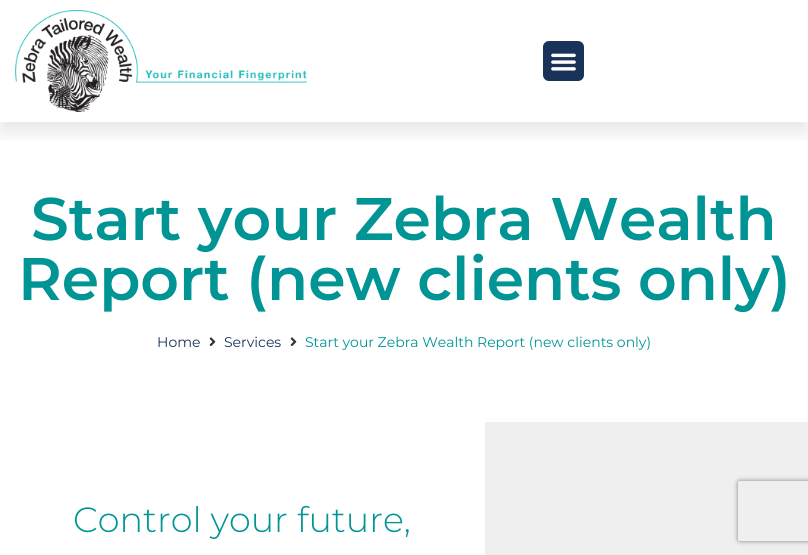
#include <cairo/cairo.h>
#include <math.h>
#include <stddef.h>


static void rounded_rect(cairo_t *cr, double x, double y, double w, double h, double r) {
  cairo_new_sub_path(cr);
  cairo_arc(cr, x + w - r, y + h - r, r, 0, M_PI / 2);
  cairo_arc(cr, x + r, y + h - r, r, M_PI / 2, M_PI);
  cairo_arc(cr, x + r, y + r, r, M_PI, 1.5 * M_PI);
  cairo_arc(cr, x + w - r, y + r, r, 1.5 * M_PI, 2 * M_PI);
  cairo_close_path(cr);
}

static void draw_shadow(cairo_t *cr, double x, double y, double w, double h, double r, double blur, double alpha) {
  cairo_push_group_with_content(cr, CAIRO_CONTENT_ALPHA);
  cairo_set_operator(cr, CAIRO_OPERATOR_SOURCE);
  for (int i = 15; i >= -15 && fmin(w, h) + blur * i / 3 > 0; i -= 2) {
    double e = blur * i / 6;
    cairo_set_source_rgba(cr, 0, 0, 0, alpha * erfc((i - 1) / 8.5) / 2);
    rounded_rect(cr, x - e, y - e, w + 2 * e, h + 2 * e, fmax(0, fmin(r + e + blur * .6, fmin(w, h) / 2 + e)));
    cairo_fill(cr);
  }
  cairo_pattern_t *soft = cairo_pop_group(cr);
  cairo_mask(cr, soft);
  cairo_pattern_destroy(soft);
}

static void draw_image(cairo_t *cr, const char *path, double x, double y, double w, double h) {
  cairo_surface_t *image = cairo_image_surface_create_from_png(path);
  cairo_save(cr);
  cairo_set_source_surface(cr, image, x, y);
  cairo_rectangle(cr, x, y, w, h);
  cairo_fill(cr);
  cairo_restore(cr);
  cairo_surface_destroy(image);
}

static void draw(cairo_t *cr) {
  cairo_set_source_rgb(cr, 1, 1, 1);
  cairo_paint(cr);
  cairo_save(cr);
  cairo_rectangle(cr, 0, 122, 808, 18);
  cairo_clip(cr);
  cairo_set_source_rgb(cr, 0, 0, 0);
  draw_shadow(cr, 0, 10, 808, 122, 0, 10, 0.1);
  cairo_restore(cr);
  draw_image(cr, "images/1.png", 15, 10, 292, 102);
  cairo_set_source_rgb(cr, 24 / 255.0, 50 / 255.0, 90 / 255.0);
  rounded_rect(cr, 543, 41, 41, 40, 6);
  cairo_fill(cr);
  draw_image(cr, "images/2.png", 551, 53, 25, 18);
  draw_image(cr, "images/3.png", 209, 337, 7, 10);
  draw_image(cr, "images/3.png", 290, 337, 7, 10);
  cairo_set_source_rgb(cr, 239 / 255.0, 239 / 255.0, 239 / 255.0);
  cairo_rectangle(cr, 485, 422, 323, 133);
  cairo_fill(cr);
  cairo_save(cr);
  cairo_set_fill_rule(cr, CAIRO_FILL_RULE_EVEN_ODD);
  cairo_new_path(cr);
  cairo_move_to(cr, 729, 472);
  cairo_line_to(cr, 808, 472);
  cairo_line_to(cr, 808, 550);
  cairo_line_to(cr, 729, 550);
  cairo_close_path(cr);
  cairo_move_to(cr, 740, 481);
  cairo_line_to(cr, 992, 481);
  cairo_curve_to(cr, 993, 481, 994, 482, 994, 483);
  cairo_line_to(cr, 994, 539);
  cairo_curve_to(cr, 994, 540, 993, 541, 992, 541);
  cairo_line_to(cr, 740, 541);
  cairo_curve_to(cr, 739, 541, 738, 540, 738, 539);
  cairo_line_to(cr, 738, 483);
  cairo_curve_to(cr, 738, 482, 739, 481, 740, 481);
  cairo_close_path(cr);
  cairo_clip(cr);
  cairo_set_source_rgb(cr, 128 / 255.0, 128 / 255.0, 128 / 255.0);
  draw_shadow(cr, 738, 481, 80, 60, 2, 2.5, 1);
  cairo_restore(cr);
  cairo_select_font_face(cr, "Montserrat SemiBold", CAIRO_FONT_SLANT_NORMAL, CAIRO_FONT_WEIGHT_NORMAL);
  cairo_set_font_size(cr, 60);
  cairo_set_source_rgb(cr, 0, 148 / 255.0, 148 / 255.0);
  cairo_move_to(cr, 31, 240);
  cairo_show_text(cr, "Start your Zebra Wealth");
  cairo_move_to(cr, 18, 300);
  cairo_show_text(cr, "Report (new clients only)");
  cairo_select_font_face(cr, "Montserrat", CAIRO_FONT_SLANT_NORMAL, CAIRO_FONT_WEIGHT_NORMAL);
  cairo_set_font_size(cr, 14);
  cairo_set_source_rgb(cr, 24 / 255.0, 50 / 255.0, 90 / 255.0);
  cairo_move_to(cr, 157, 347);
  cairo_show_text(cr, "Home");
  cairo_move_to(cr, 224, 347);
  cairo_show_text(cr, "Services");
  cairo_set_source_rgb(cr, 0, 148 / 255.0, 148 / 255.0);
  cairo_move_to(cr, 305, 347);
  cairo_show_text(cr, "Start your Zebra Wealth Report (new clients only)");
  cairo_select_font_face(cr, "Montserrat Light", CAIRO_FONT_SLANT_NORMAL, CAIRO_FONT_WEIGHT_NORMAL);
  cairo_set_font_size(cr, 35);
  cairo_move_to(cr, 73, 532);
  cairo_show_text(cr, "Control your future,");
}

int main(void) {
  cairo_surface_t *surface = cairo_image_surface_create(CAIRO_FORMAT_RGB24, 808, 555);
  cairo_t *cr = cairo_create(surface);
  cairo_font_options_t *options = cairo_font_options_create();
  cairo_font_options_set_hint_metrics(options, CAIRO_HINT_METRICS_OFF);
  cairo_font_options_set_hint_style(options, CAIRO_HINT_STYLE_NONE);
  cairo_set_font_options(cr, options);
  cairo_set_miter_limit(cr, 4);
  draw(cr);
  cairo_surface_write_to_png(surface, "out.png");
  cairo_font_options_destroy(options);
  cairo_destroy(cr);
  cairo_surface_destroy(surface);
  return 0;
}
